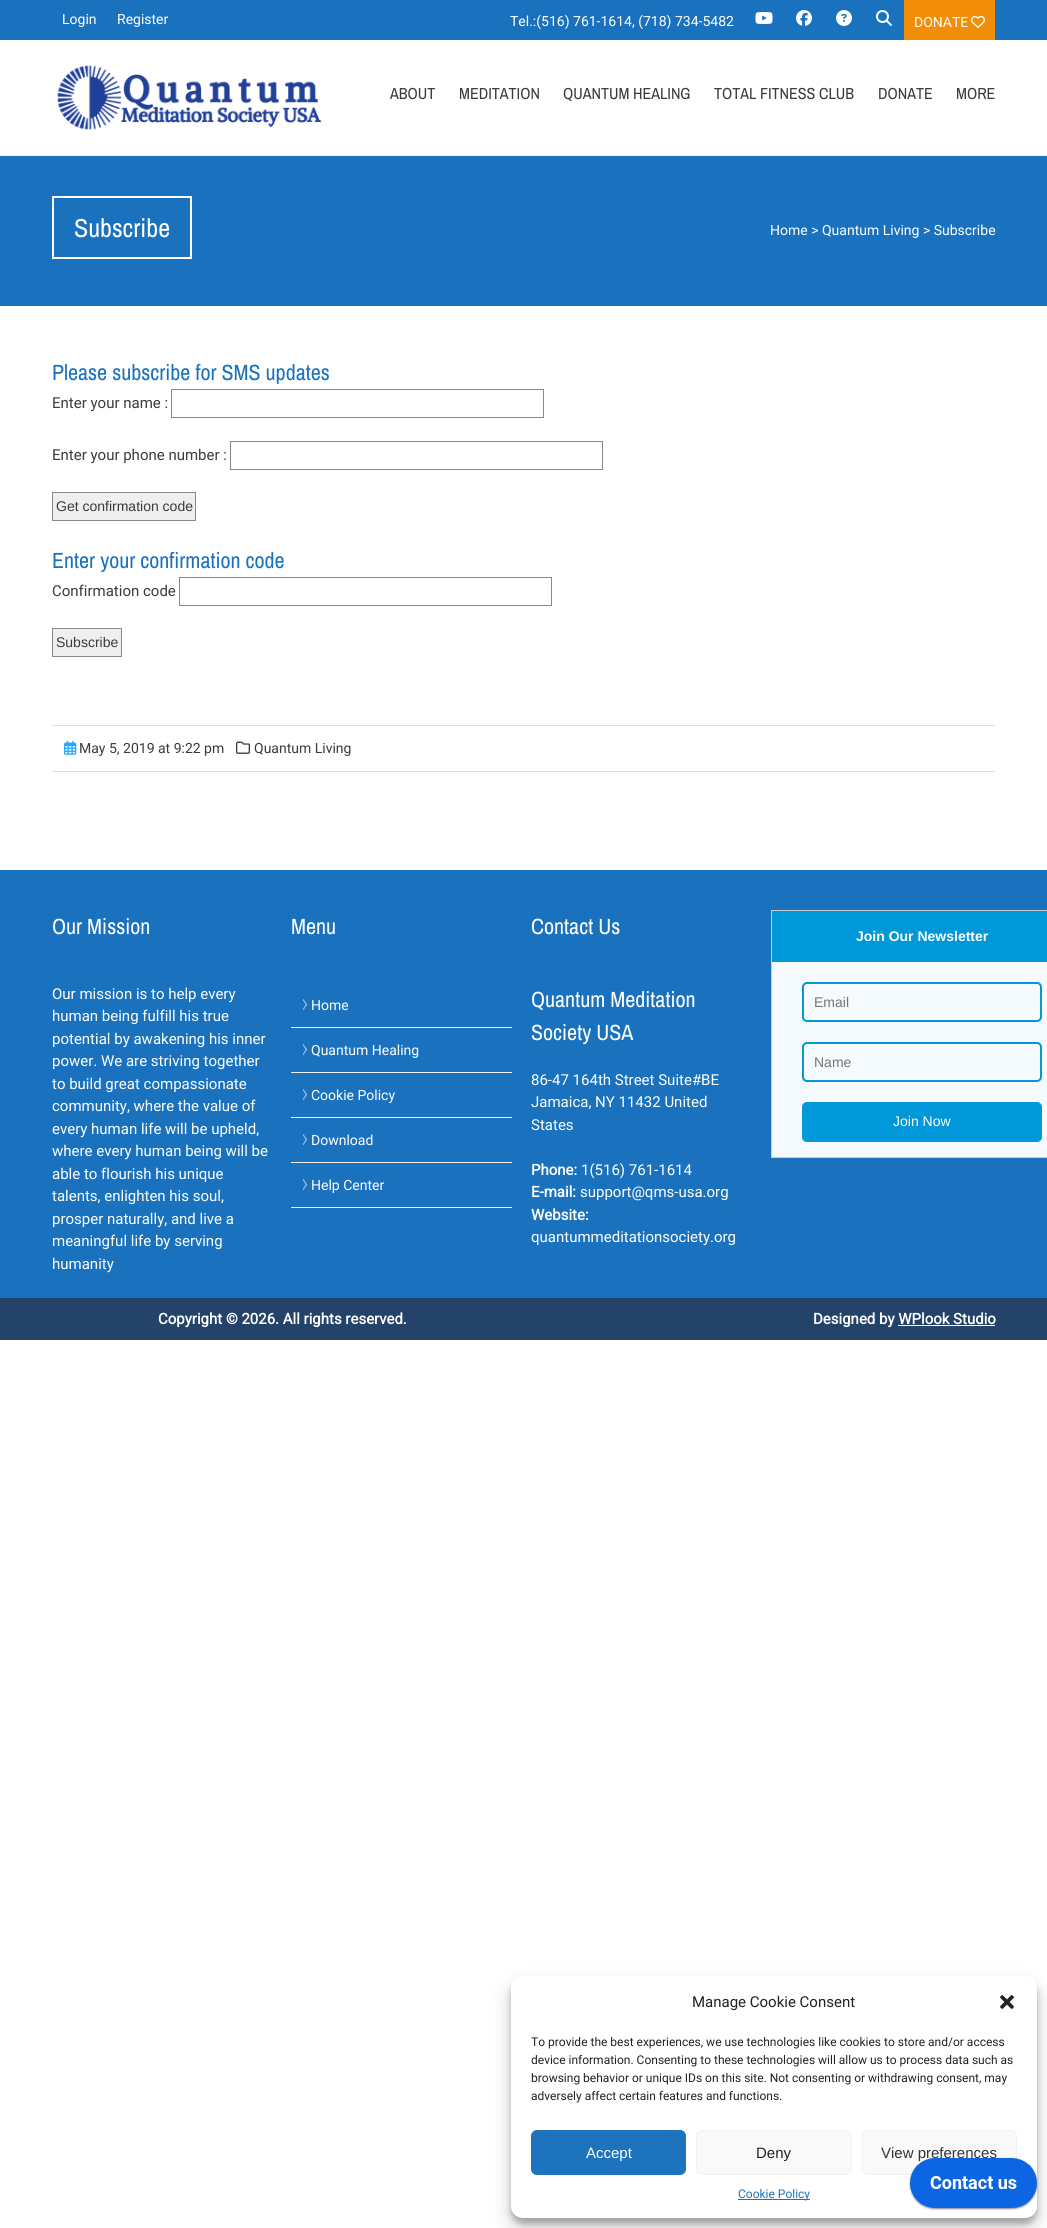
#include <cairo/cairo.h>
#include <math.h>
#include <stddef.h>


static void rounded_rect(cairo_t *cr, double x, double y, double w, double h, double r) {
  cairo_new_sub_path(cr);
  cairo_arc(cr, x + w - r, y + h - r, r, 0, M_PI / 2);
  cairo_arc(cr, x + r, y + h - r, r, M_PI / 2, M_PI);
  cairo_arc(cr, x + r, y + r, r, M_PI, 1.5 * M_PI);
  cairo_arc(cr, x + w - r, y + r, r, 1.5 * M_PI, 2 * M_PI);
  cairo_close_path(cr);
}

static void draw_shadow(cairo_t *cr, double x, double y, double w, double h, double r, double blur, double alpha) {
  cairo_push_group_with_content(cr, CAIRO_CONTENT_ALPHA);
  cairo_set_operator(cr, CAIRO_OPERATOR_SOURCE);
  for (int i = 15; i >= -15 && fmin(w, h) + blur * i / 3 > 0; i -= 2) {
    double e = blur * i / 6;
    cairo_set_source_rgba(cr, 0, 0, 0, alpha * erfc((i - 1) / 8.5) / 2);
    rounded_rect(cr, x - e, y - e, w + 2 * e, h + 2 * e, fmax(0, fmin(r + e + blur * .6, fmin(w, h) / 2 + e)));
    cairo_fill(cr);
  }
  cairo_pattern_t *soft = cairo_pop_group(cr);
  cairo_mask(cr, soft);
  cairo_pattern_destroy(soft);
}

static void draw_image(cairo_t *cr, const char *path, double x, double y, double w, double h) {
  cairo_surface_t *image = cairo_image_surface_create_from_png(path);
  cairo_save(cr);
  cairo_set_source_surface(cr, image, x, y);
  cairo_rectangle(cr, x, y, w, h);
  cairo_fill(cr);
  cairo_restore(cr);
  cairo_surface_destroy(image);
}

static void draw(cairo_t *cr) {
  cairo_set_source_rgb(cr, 1, 1, 1);
  cairo_paint(cr);
  cairo_set_source_rgb(cr, 26 / 255.0, 114 / 255.0, 191 / 255.0);
  cairo_rectangle(cr, 0, 0, 1047, 40);
  cairo_fill(cr);
  draw_image(cr, "images/1.png", 755, 12, 18, 12);
  draw_image(cr, "images/2.png", 796, 10, 16, 16);
  draw_image(cr, "images/3.png", 836, 10, 16, 16);
  draw_image(cr, "images/4.png", 876, 10, 16, 16);
  cairo_set_source_rgb(cr, 241 / 255.0, 141 / 255.0, 6 / 255.0);
  cairo_rectangle(cr, 904, 0, 91, 40);
  cairo_fill(cr);
  draw_image(cr, "images/5.png", 971, 15, 14, 13);
  cairo_set_source_rgb(cr, 243 / 255.0, 243 / 255.0, 243 / 255.0);
  cairo_rectangle(cr, 0, 155, 1047, 1);
  cairo_fill(cr);
  draw_image(cr, "images/6.png", 57, 65, 265, 65);
  cairo_set_source_rgb(cr, 26 / 255.0, 114 / 255.0, 191 / 255.0);
  cairo_rectangle(cr, 0, 156, 1047, 150);
  cairo_fill(cr);
  cairo_rectangle(cr, 53, 197, 138, 61);
  cairo_set_source_rgb(cr, 1, 1, 1);
  cairo_stroke(cr);
  cairo_rectangle(cr, 171.5, 389.5, 372, 28);
  cairo_set_source_rgb(cr, 136 / 255.0, 136 / 255.0, 136 / 255.0);
  cairo_set_line_width(cr, 1);
  cairo_stroke(cr);
  cairo_rectangle(cr, 230.5, 441.5, 372, 28);
  cairo_stroke(cr);
  cairo_set_source_rgb(cr, 239 / 255.0, 239 / 255.0, 239 / 255.0);
  cairo_rectangle(cr, 52.5, 492.5, 143, 28);
  cairo_fill_preserve(cr);
  cairo_set_source_rgb(cr, 136 / 255.0, 136 / 255.0, 136 / 255.0);
  cairo_stroke(cr);
  cairo_rectangle(cr, 179.5, 577.5, 372, 28);
  cairo_stroke(cr);
  cairo_set_source_rgb(cr, 239 / 255.0, 239 / 255.0, 239 / 255.0);
  cairo_rectangle(cr, 52.5, 628.5, 69, 28);
  cairo_fill_preserve(cr);
  cairo_set_source_rgb(cr, 136 / 255.0, 136 / 255.0, 136 / 255.0);
  cairo_stroke(cr);
  cairo_set_source_rgb(cr, 221 / 255.0, 221 / 255.0, 221 / 255.0);
  cairo_rectangle(cr, 52, 725, 943, 1);
  cairo_fill(cr);
  cairo_rectangle(cr, 52, 771, 943, 1);
  cairo_fill(cr);
  draw_image(cr, "images/7.png", 64, 740, 13, 15);
  draw_image(cr, "images/8.png", 236, 741, 14, 13);
  cairo_set_source_rgb(cr, 26 / 255.0, 114 / 255.0, 191 / 255.0);
  cairo_rectangle(cr, 0, 870, 1047, 428);
  cairo_fill(cr);
  cairo_set_source_rgb(cr, 241 / 255.0, 241 / 255.0, 241 / 255.0);
  cairo_rectangle(cr, 291, 1027, 221, 1);
  cairo_fill(cr);
  draw_image(cr, "images/9.png", 303, 999, 4, 11);
  cairo_rectangle(cr, 291, 1072, 221, 1);
  cairo_fill(cr);
  draw_image(cr, "images/9.png", 303, 1044, 4, 11);
  cairo_rectangle(cr, 291, 1117, 221, 1);
  cairo_fill(cr);
  draw_image(cr, "images/9.png", 303, 1089, 4, 11);
  cairo_rectangle(cr, 291, 1162, 221, 1);
  cairo_fill(cr);
  draw_image(cr, "images/9.png", 303, 1134, 4, 11);
  cairo_rectangle(cr, 291, 1207, 221, 1);
  cairo_fill(cr);
  draw_image(cr, "images/9.png", 303, 1179, 4, 11);
  cairo_set_source_rgb(cr, 245 / 255.0, 250 / 255.0, 254 / 255.0);
  cairo_rectangle(cr, 772, 962, 275, 195);
  cairo_fill(cr);
  cairo_rectangle(cr, 771.5, 910.5, 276, 247);
  cairo_set_source_rgb(cr, 206 / 255.0, 206 / 255.0, 206 / 255.0);
  cairo_stroke(cr);
  cairo_set_source_rgb(cr, 0, 152 / 255.0, 217 / 255.0);
  cairo_rectangle(cr, 772, 911, 275, 51);
  cairo_fill(cr);
  rounded_rect(cr, 803, 983, 238, 38, 4);
  cairo_set_line_width(cr, 2);
  cairo_stroke(cr);
  rounded_rect(cr, 803, 1043, 238, 38, 4);
  cairo_stroke(cr);
  rounded_rect(cr, 802, 1102, 240, 40, 5);
  cairo_fill(cr);
  cairo_set_source_rgb(cr, 36 / 255.0, 67 / 255.0, 105 / 255.0);
  cairo_rectangle(cr, 0, 1298, 1047, 42);
  cairo_fill(cr);
  cairo_set_source_rgb(cr, 1, 1, 1);
  cairo_rectangle(cr, 898, 1325, 97, 1);
  cairo_fill(cr);
  cairo_set_source_rgb(cr, 0, 0, 0);
  draw_shadow(cr, 511, 1982, 526, 242, 12, 3, 0.23);
  draw_shadow(cr, 511, 1986, 526, 242, 12, 10, 0.19);
  cairo_set_source_rgb(cr, 1, 1, 1);
  rounded_rect(cr, 511, 1976, 526, 242, 12);
  cairo_fill(cr);
  draw_image(cr, "images/10.png", 1000, 1995, 14, 14);
  cairo_set_source_rgb(cr, 30 / 255.0, 115 / 255.0, 190 / 255.0);
  rounded_rect(cr, 531.5, 2130.5, 154, 44, 5.5);
  cairo_fill_preserve(cr);
  cairo_set_line_width(cr, 1);
  cairo_stroke(cr);
  cairo_set_source_rgb(cr, 249 / 255.0, 249 / 255.0, 249 / 255.0);
  rounded_rect(cr, 696.5, 2130.5, 155, 44, 5.5);
  cairo_fill_preserve(cr);
  cairo_set_source_rgb(cr, 242 / 255.0, 242 / 255.0, 242 / 255.0);
  cairo_stroke(cr);
  cairo_set_source_rgb(cr, 249 / 255.0, 249 / 255.0, 249 / 255.0);
  rounded_rect(cr, 862.5, 2130.5, 154, 44, 5.5);
  cairo_fill_preserve(cr);
  cairo_set_source_rgb(cr, 242 / 255.0, 242 / 255.0, 242 / 255.0);
  cairo_stroke(cr);
  cairo_set_source_rgb(cr, 30 / 255.0, 115 / 255.0, 190 / 255.0);
  cairo_rectangle(cr, 738, 2199, 72, 1);
  cairo_fill(cr);
  cairo_select_font_face(cr, "Roboto", CAIRO_FONT_SLANT_NORMAL, CAIRO_FONT_WEIGHT_NORMAL);
  cairo_set_font_size(cr, 14);
  cairo_set_source_rgb(cr, 1, 1, 1);
  cairo_move_to(cr, 62, 24);
  cairo_show_text(cr, "Login");
  cairo_move_to(cr, 117, 24);
  cairo_show_text(cr, "Register");
  cairo_move_to(cr, 510, 26);
  cairo_show_text(cr, "Tel.:(516) 761-1614, (718) 734-5482");
  cairo_move_to(cr, 914, 27);
  cairo_show_text(cr, "DONATE");
  cairo_select_font_face(cr, "Archivo Narrow", CAIRO_FONT_SLANT_NORMAL, CAIRO_FONT_WEIGHT_NORMAL);
  cairo_set_font_size(cr, 16);
  cairo_set_source_rgb(cr, 59 / 255.0, 59 / 255.0, 61 / 255.0);
  cairo_move_to(cr, 390, 99);
  cairo_show_text(cr, "ABOUT");
  cairo_move_to(cr, 459, 99);
  cairo_show_text(cr, "MEDITATION");
  cairo_move_to(cr, 563, 99);
  cairo_show_text(cr, "QUANTUM HEALING");
  cairo_move_to(cr, 714, 99);
  cairo_show_text(cr, "TOTAL FITNESS CLUB");
  cairo_move_to(cr, 878, 99);
  cairo_show_text(cr, "DONATE");
  cairo_move_to(cr, 956, 99);
  cairo_show_text(cr, "MORE");
  cairo_set_font_size(cr, 26);
  cairo_set_source_rgb(cr, 1, 1, 1);
  cairo_move_to(cr, 74, 237);
  cairo_show_text(cr, "Subscribe");
  cairo_select_font_face(cr, "Roboto", CAIRO_FONT_SLANT_NORMAL, CAIRO_FONT_WEIGHT_NORMAL);
  cairo_set_font_size(cr, 14);
  cairo_move_to(cr, 770, 235);
  cairo_show_text(cr, "Home > Quantum Living > Subscribe");
  cairo_select_font_face(cr, "Archivo Narrow", CAIRO_FONT_SLANT_NORMAL, CAIRO_FONT_WEIGHT_NORMAL);
  cairo_set_font_size(cr, 22);
  cairo_set_source_rgb(cr, 26 / 255.0, 114 / 255.0, 191 / 255.0);
  cairo_move_to(cr, 52, 380);
  cairo_show_text(cr, "Please subscribe for SMS updates");
  cairo_select_font_face(cr, "Roboto", CAIRO_FONT_SLANT_NORMAL, CAIRO_FONT_WEIGHT_NORMAL);
  cairo_set_font_size(cr, 15);
  cairo_set_source_rgb(cr, 59 / 255.0, 59 / 255.0, 61 / 255.0);
  cairo_move_to(cr, 52, 408);
  cairo_show_text(cr, "Enter your name :");
  cairo_move_to(cr, 52, 460);
  cairo_show_text(cr, "Enter your phone number :");
  cairo_select_font_face(cr, "Arimo", CAIRO_FONT_SLANT_NORMAL, CAIRO_FONT_WEIGHT_NORMAL);
  cairo_set_font_size(cr, 14);
  cairo_move_to(cr, 56, 511);
  cairo_show_text(cr, "Get confirmation code");
  cairo_select_font_face(cr, "Archivo Narrow", CAIRO_FONT_SLANT_NORMAL, CAIRO_FONT_WEIGHT_NORMAL);
  cairo_set_font_size(cr, 22);
  cairo_set_source_rgb(cr, 26 / 255.0, 114 / 255.0, 191 / 255.0);
  cairo_move_to(cr, 52, 568);
  cairo_show_text(cr, "Enter your confirmation code");
  cairo_select_font_face(cr, "Roboto", CAIRO_FONT_SLANT_NORMAL, CAIRO_FONT_WEIGHT_NORMAL);
  cairo_set_font_size(cr, 15);
  cairo_set_source_rgb(cr, 59 / 255.0, 59 / 255.0, 61 / 255.0);
  cairo_move_to(cr, 52, 596);
  cairo_show_text(cr, "Confirmation code");
  cairo_select_font_face(cr, "Arimo", CAIRO_FONT_SLANT_NORMAL, CAIRO_FONT_WEIGHT_NORMAL);
  cairo_set_font_size(cr, 14);
  cairo_move_to(cr, 56, 647);
  cairo_show_text(cr, "Subscribe");
  cairo_select_font_face(cr, "Roboto", CAIRO_FONT_SLANT_NORMAL, CAIRO_FONT_WEIGHT_NORMAL);
  cairo_move_to(cr, 79, 753);
  cairo_show_text(cr, "May 5, 2019 at 9:22 pm");
  cairo_move_to(cr, 254, 753);
  cairo_show_text(cr, "Quantum Living");
  cairo_select_font_face(cr, "Archivo Narrow", CAIRO_FONT_SLANT_NORMAL, CAIRO_FONT_WEIGHT_NORMAL);
  cairo_set_font_size(cr, 22);
  cairo_set_source_rgb(cr, 1, 1, 1);
  cairo_move_to(cr, 52, 934);
  cairo_show_text(cr, "Our Mission");
  cairo_select_font_face(cr, "Roboto", CAIRO_FONT_SLANT_NORMAL, CAIRO_FONT_WEIGHT_NORMAL);
  cairo_set_font_size(cr, 15);
  cairo_move_to(cr, 52, 999);
  cairo_show_text(cr, "Our mission is to help every");
  cairo_move_to(cr, 52, 1021);
  cairo_show_text(cr, "human being fulfill his true");
  cairo_move_to(cr, 52, 1044);
  cairo_show_text(cr, "potential by awakening his inner");
  cairo_move_to(cr, 52, 1066);
  cairo_show_text(cr, "power. We are striving together");
  cairo_move_to(cr, 52, 1089);
  cairo_show_text(cr, "to build great compassionate");
  cairo_move_to(cr, 52, 1111);
  cairo_show_text(cr, "community, where the value of");
  cairo_move_to(cr, 52, 1134);
  cairo_show_text(cr, "every human life will be upheld,");
  cairo_move_to(cr, 52, 1156);
  cairo_show_text(cr, "where every human being will be");
  cairo_move_to(cr, 52, 1179);
  cairo_show_text(cr, "able to flourish his unique");
  cairo_move_to(cr, 52, 1201);
  cairo_show_text(cr, "talents, enlighten his soul,");
  cairo_move_to(cr, 52, 1224);
  cairo_show_text(cr, "prosper naturally, and live a");
  cairo_move_to(cr, 52, 1246);
  cairo_show_text(cr, "meaningful life by serving");
  cairo_move_to(cr, 52, 1269);
  cairo_show_text(cr, "humanity");
  cairo_select_font_face(cr, "Archivo Narrow", CAIRO_FONT_SLANT_NORMAL, CAIRO_FONT_WEIGHT_NORMAL);
  cairo_set_font_size(cr, 22);
  cairo_move_to(cr, 291, 934);
  cairo_show_text(cr, "Menu");
  cairo_select_font_face(cr, "Roboto", CAIRO_FONT_SLANT_NORMAL, CAIRO_FONT_WEIGHT_NORMAL);
  cairo_set_font_size(cr, 14);
  cairo_move_to(cr, 311, 1010);
  cairo_show_text(cr, "Home");
  cairo_move_to(cr, 311, 1055);
  cairo_show_text(cr, "Quantum Healing");
  cairo_move_to(cr, 311, 1100);
  cairo_show_text(cr, "Cookie Policy");
  cairo_move_to(cr, 311, 1145);
  cairo_show_text(cr, "Download");
  cairo_move_to(cr, 311, 1190);
  cairo_show_text(cr, "Help Center");
  cairo_select_font_face(cr, "Archivo Narrow", CAIRO_FONT_SLANT_NORMAL, CAIRO_FONT_WEIGHT_NORMAL);
  cairo_set_font_size(cr, 22);
  cairo_move_to(cr, 531, 934);
  cairo_show_text(cr, "Contact Us");
  cairo_move_to(cr, 531, 1007);
  cairo_show_text(cr, "Quantum Meditation");
  cairo_move_to(cr, 531, 1040);
  cairo_show_text(cr, "Society USA");
  cairo_select_font_face(cr, "Roboto", CAIRO_FONT_SLANT_NORMAL, CAIRO_FONT_WEIGHT_NORMAL);
  cairo_set_font_size(cr, 15);
  cairo_move_to(cr, 531, 1085);
  cairo_show_text(cr, "86-47 164th Street Suite#BE");
  cairo_move_to(cr, 531, 1107);
  cairo_show_text(cr, "Jamaica, NY 11432 United");
  cairo_move_to(cr, 531, 1130);
  cairo_show_text(cr, "States");
  cairo_select_font_face(cr, "Roboto", CAIRO_FONT_SLANT_NORMAL, CAIRO_FONT_WEIGHT_BOLD);
  cairo_move_to(cr, 531, 1175);
  cairo_show_text(cr, "Phone:");
  cairo_select_font_face(cr, "Roboto", CAIRO_FONT_SLANT_NORMAL, CAIRO_FONT_WEIGHT_NORMAL);
  cairo_move_to(cr, 581, 1175);
  cairo_show_text(cr, "1(516) 761-1614");
  cairo_select_font_face(cr, "Roboto", CAIRO_FONT_SLANT_NORMAL, CAIRO_FONT_WEIGHT_BOLD);
  cairo_move_to(cr, 531, 1197);
  cairo_show_text(cr, "E-mail:");
  cairo_select_font_face(cr, "Roboto", CAIRO_FONT_SLANT_NORMAL, CAIRO_FONT_WEIGHT_NORMAL);
  cairo_move_to(cr, 580, 1197);
  cairo_show_text(cr, "support@qms-usa.org");
  cairo_select_font_face(cr, "Roboto", CAIRO_FONT_SLANT_NORMAL, CAIRO_FONT_WEIGHT_BOLD);
  cairo_move_to(cr, 531, 1220);
  cairo_show_text(cr, "Website:");
  cairo_select_font_face(cr, "Roboto", CAIRO_FONT_SLANT_NORMAL, CAIRO_FONT_WEIGHT_NORMAL);
  cairo_move_to(cr, 531, 1242);
  cairo_show_text(cr, "quantummeditationsociety.org");
  cairo_select_font_face(cr, "Liberation Sans", CAIRO_FONT_SLANT_NORMAL, CAIRO_FONT_WEIGHT_BOLD);
  cairo_set_font_size(cr, 14);
  cairo_move_to(cr, 856, 941);
  cairo_show_text(cr, "Join Our Newsletter");
  cairo_select_font_face(cr, "Liberation Sans", CAIRO_FONT_SLANT_NORMAL, CAIRO_FONT_WEIGHT_NORMAL);
  cairo_set_source_rgb(cr, 117 / 255.0, 117 / 255.0, 117 / 255.0);
  cairo_move_to(cr, 814, 1007);
  cairo_show_text(cr, "Email");
  cairo_move_to(cr, 814, 1067);
  cairo_show_text(cr, "Name");
  cairo_select_font_face(cr, "Arimo", CAIRO_FONT_SLANT_NORMAL, CAIRO_FONT_WEIGHT_NORMAL);
  cairo_set_source_rgb(cr, 1, 1, 1);
  cairo_move_to(cr, 893, 1126);
  cairo_show_text(cr, "Join Now");
  cairo_select_font_face(cr, "Roboto", CAIRO_FONT_SLANT_NORMAL, CAIRO_FONT_WEIGHT_BOLD);
  cairo_set_font_size(cr, 15);
  cairo_move_to(cr, 158, 1324);
  cairo_show_text(cr, "Copyright © 2026. All rights reserved.");
  cairo_move_to(cr, 813, 1324);
  cairo_show_text(cr, "Designed by WPlook Studio");
  cairo_select_font_face(cr, "Roboto", CAIRO_FONT_SLANT_NORMAL, CAIRO_FONT_WEIGHT_NORMAL);
  cairo_set_source_rgb(cr, 34 / 255.0, 34 / 255.0, 34 / 255.0);
  cairo_move_to(cr, 692, 2007);
  cairo_show_text(cr, "Manage Cookie Consent");
  cairo_set_font_size(cr, 12);
  cairo_move_to(cr, 531, 2046);
  cairo_show_text(cr, "To provide the best experiences, we use technologies like cookies to store and/or access");
  cairo_move_to(cr, 531, 2064);
  cairo_show_text(cr, "device information. Consenting to these technologies will allow us to process data such as");
  cairo_move_to(cr, 531, 2082);
  cairo_show_text(cr, "browsing behavior or unique IDs on this site. Not consenting or withdrawing consent, may");
  cairo_move_to(cr, 531, 2100);
  cairo_show_text(cr, "adversely affect certain features and functions.");
  cairo_select_font_face(cr, "Liberation Sans", CAIRO_FONT_SLANT_NORMAL, CAIRO_FONT_WEIGHT_NORMAL);
  cairo_set_font_size(cr, 15);
  cairo_set_source_rgb(cr, 1, 1, 1);
  cairo_move_to(cr, 586, 2158);
  cairo_show_text(cr, "Accept");
  cairo_set_source_rgb(cr, 34 / 255.0, 34 / 255.0, 34 / 255.0);
  cairo_move_to(cr, 756, 2158);
  cairo_show_text(cr, "Deny");
  cairo_set_source_rgb(cr, 51 / 255.0, 51 / 255.0, 51 / 255.0);
  cairo_move_to(cr, 881, 2158);
  cairo_show_text(cr, "View preferences");
  cairo_select_font_face(cr, "Roboto", CAIRO_FONT_SLANT_NORMAL, CAIRO_FONT_WEIGHT_NORMAL);
  cairo_set_font_size(cr, 12);
  cairo_set_source_rgb(cr, 26 / 255.0, 114 / 255.0, 191 / 255.0);
  cairo_move_to(cr, 738, 2198);
  cairo_show_text(cr, "Cookie Policy");
  draw_image(cr, "images/11.png", 908, 2157, 131, 54);
}

int main(void) {
  cairo_surface_t *surface = cairo_image_surface_create(CAIRO_FORMAT_RGB24, 1047, 2228);
  cairo_t *cr = cairo_create(surface);
  cairo_font_options_t *options = cairo_font_options_create();
  cairo_font_options_set_hint_metrics(options, CAIRO_HINT_METRICS_OFF);
  cairo_font_options_set_hint_style(options, CAIRO_HINT_STYLE_NONE);
  cairo_set_font_options(cr, options);
  cairo_set_miter_limit(cr, 4);
  draw(cr);
  cairo_surface_write_to_png(surface, "out.png");
  cairo_font_options_destroy(options);
  cairo_destroy(cr);
  cairo_surface_destroy(surface);
  return 0;
}
